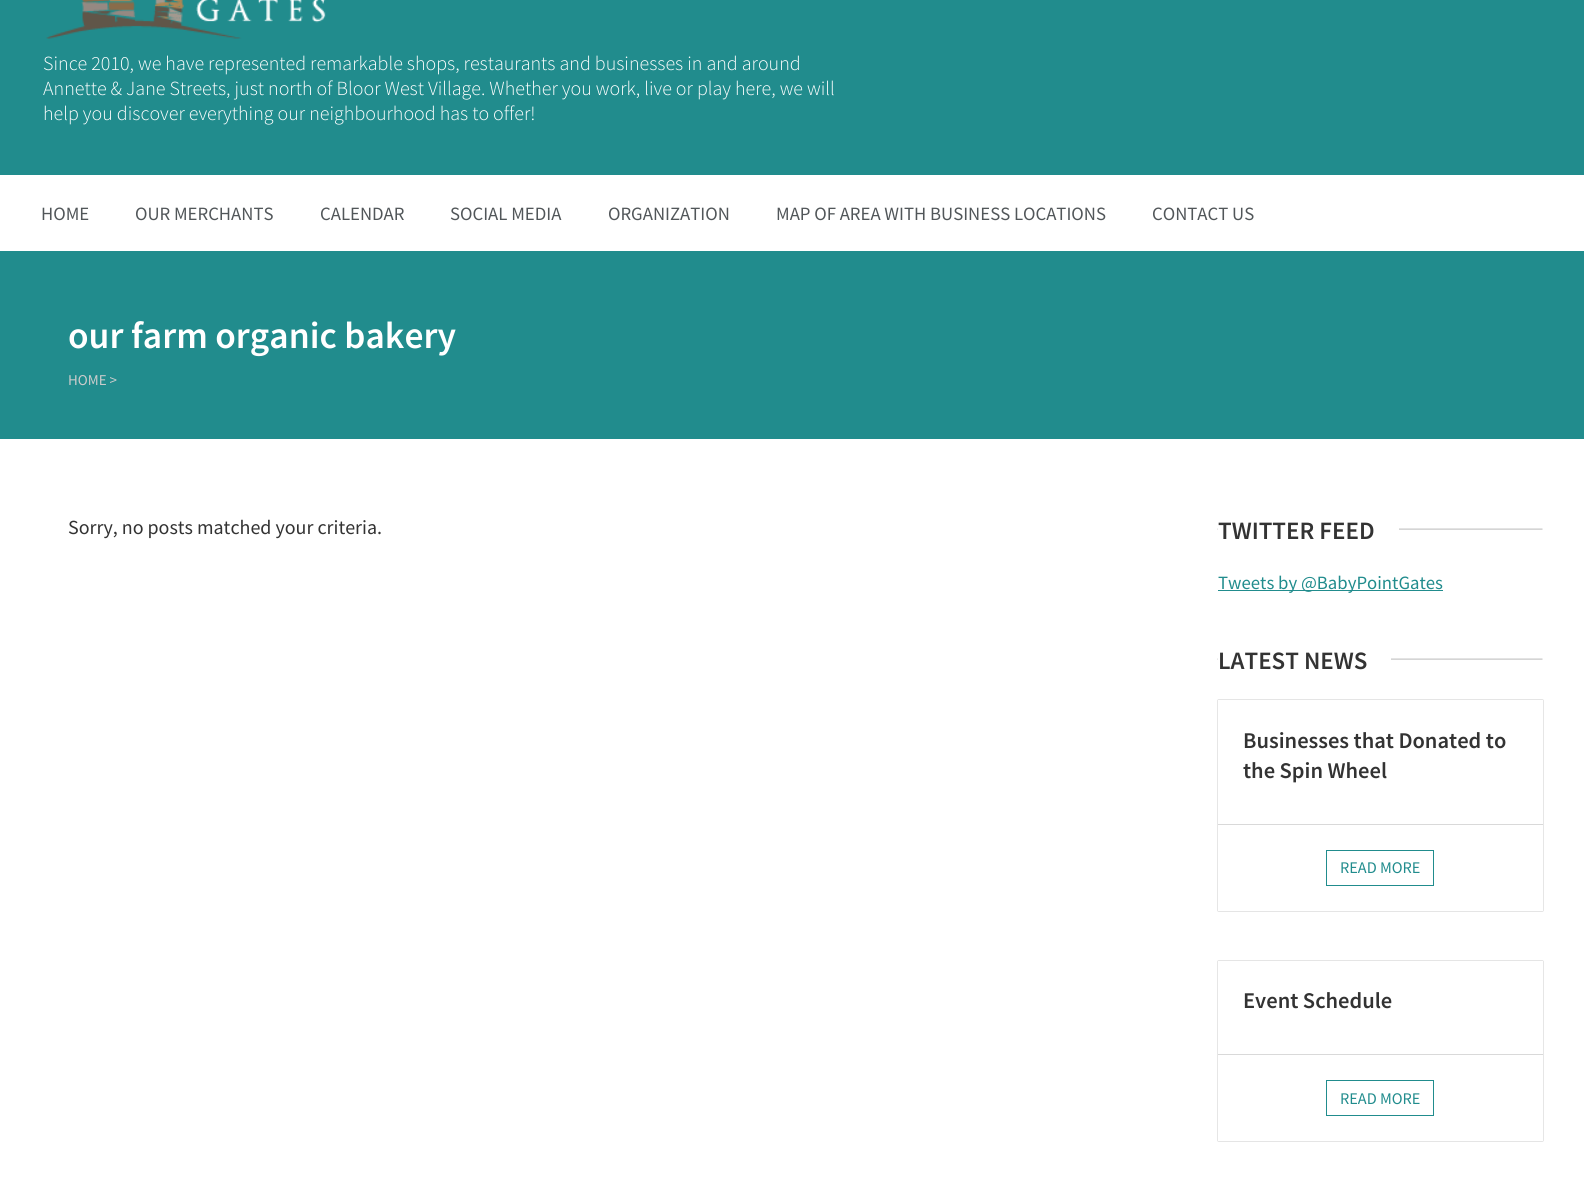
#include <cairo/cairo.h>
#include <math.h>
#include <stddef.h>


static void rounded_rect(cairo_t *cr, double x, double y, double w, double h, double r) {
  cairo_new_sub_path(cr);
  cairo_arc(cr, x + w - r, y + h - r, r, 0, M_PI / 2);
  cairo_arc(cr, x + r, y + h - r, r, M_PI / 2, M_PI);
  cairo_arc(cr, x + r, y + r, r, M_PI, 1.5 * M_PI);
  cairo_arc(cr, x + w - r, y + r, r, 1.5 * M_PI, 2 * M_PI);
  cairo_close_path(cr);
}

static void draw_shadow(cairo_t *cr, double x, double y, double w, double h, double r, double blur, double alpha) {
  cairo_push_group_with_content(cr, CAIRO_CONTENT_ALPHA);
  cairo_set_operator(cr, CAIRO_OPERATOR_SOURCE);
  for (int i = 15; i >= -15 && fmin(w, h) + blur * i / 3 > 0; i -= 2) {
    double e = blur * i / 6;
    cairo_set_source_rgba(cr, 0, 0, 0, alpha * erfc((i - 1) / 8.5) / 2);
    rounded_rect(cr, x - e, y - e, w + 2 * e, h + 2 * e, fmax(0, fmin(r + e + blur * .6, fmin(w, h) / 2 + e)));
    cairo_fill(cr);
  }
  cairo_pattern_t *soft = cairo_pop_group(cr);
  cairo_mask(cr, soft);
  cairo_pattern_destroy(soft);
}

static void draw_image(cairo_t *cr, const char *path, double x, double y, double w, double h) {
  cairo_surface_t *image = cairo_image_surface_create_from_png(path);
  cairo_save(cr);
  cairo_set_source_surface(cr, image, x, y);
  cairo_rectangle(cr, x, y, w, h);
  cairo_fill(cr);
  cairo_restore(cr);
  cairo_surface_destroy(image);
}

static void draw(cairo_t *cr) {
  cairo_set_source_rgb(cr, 1, 1, 1);
  cairo_paint(cr);
  cairo_set_source_rgb(cr, 33 / 255.0, 140 / 255.0, 141 / 255.0);
  cairo_rectangle(cr, 0, 0, 1584, 439);
  cairo_fill(cr);
  draw_image(cr, "images/1.png", 46, 0, 280, 39);
  cairo_set_source_rgb(cr, 1, 1, 1);
  cairo_rectangle(cr, 0, 175, 1584, 76);
  cairo_fill(cr);
  draw_image(cr, "images/2.png", 1217, 528, 326, 2);
  cairo_rectangle(cr, 1218, 528, 181, 2);
  cairo_fill(cr);
  cairo_set_source_rgb(cr, 33 / 255.0, 140 / 255.0, 141 / 255.0);
  cairo_rectangle(cr, 1218, 590, 225, 1);
  cairo_fill(cr);
  draw_image(cr, "images/2.png", 1217, 658, 326, 2);
  cairo_set_source_rgb(cr, 1, 1, 1);
  cairo_rectangle(cr, 1218, 658, 173, 2);
  cairo_fill(cr);
  cairo_set_source_rgb(cr, 50 / 255.0, 50 / 255.0, 50 / 255.0);
  draw_shadow(cr, 1218, 700, 325, 211, 0, 0.5, 0.5);
  cairo_set_source_rgb(cr, 1, 1, 1);
  cairo_rectangle(cr, 1218, 700, 325, 211);
  cairo_fill(cr);
  cairo_set_source_rgb(cr, 217 / 255.0, 217 / 255.0, 217 / 255.0);
  cairo_rectangle(cr, 1218, 824, 325, 1);
  cairo_fill(cr);
  cairo_rectangle(cr, 1326.5, 850.5, 107, 35);
  cairo_set_source_rgb(cr, 33 / 255.0, 140 / 255.0, 141 / 255.0);
  cairo_set_line_width(cr, 1);
  cairo_stroke(cr);
  cairo_set_source_rgb(cr, 50 / 255.0, 50 / 255.0, 50 / 255.0);
  draw_shadow(cr, 1218, 961, 325, 180, 0, 0.5, 0.5);
  cairo_set_source_rgb(cr, 1, 1, 1);
  cairo_rectangle(cr, 1218, 961, 325, 180);
  cairo_fill(cr);
  cairo_set_source_rgb(cr, 217 / 255.0, 217 / 255.0, 217 / 255.0);
  cairo_rectangle(cr, 1218, 1054, 325, 1);
  cairo_fill(cr);
  cairo_rectangle(cr, 1326.5, 1080.5, 107, 35);
  cairo_set_source_rgb(cr, 33 / 255.0, 140 / 255.0, 141 / 255.0);
  cairo_stroke(cr);
  cairo_select_font_face(cr, "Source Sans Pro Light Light", CAIRO_FONT_SLANT_NORMAL, CAIRO_FONT_WEIGHT_NORMAL);
  cairo_set_font_size(cr, 20);
  cairo_set_source_rgb(cr, 1, 1, 1);
  cairo_move_to(cr, 43, 70);
  cairo_show_text(cr, "Since 2010, we have represented remarkable shops, restaurants and businesses in and around");
  cairo_move_to(cr, 43, 95);
  cairo_show_text(cr, "Annette & Jane Streets, just north of Bloor West Village. Whether you work, live or play here, we will");
  cairo_move_to(cr, 43, 120);
  cairo_show_text(cr, "help you discover everything our neighbourhood has to offer!");
  cairo_select_font_face(cr, "Source Sans Pro", CAIRO_FONT_SLANT_NORMAL, CAIRO_FONT_WEIGHT_NORMAL);
  cairo_set_font_size(cr, 18.75);
  cairo_set_source_rgb(cr, 81 / 255.0, 86 / 255.0, 89 / 255.0);
  cairo_move_to(cr, 41, 220);
  cairo_show_text(cr, "HOME");
  cairo_move_to(cr, 135, 220);
  cairo_show_text(cr, "OUR MERCHANTS");
  cairo_move_to(cr, 320, 220);
  cairo_show_text(cr, "CALENDAR");
  cairo_move_to(cr, 450, 220);
  cairo_show_text(cr, "SOCIAL MEDIA");
  cairo_move_to(cr, 608, 220);
  cairo_show_text(cr, "ORGANIZATION");
  cairo_move_to(cr, 776, 220);
  cairo_show_text(cr, "MAP OF AREA WITH BUSINESS LOCATIONS");
  cairo_move_to(cr, 1152, 220);
  cairo_show_text(cr, "CONTACT US");
  cairo_select_font_face(cr, "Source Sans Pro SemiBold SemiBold", CAIRO_FONT_SLANT_NORMAL, CAIRO_FONT_WEIGHT_NORMAL);
  cairo_set_font_size(cr, 37.5);
  cairo_set_source_rgb(cr, 1, 1, 1);
  cairo_move_to(cr, 68, 348);
  cairo_show_text(cr, "our farm organic bakery");
  cairo_select_font_face(cr, "Source Sans Pro", CAIRO_FONT_SLANT_NORMAL, CAIRO_FONT_WEIGHT_NORMAL);
  cairo_set_font_size(cr, 15);
  cairo_set_source_rgb(cr, 204 / 255.0, 204 / 255.0, 204 / 255.0);
  cairo_move_to(cr, 68, 385);
  cairo_show_text(cr, "HOME >");
  cairo_set_font_size(cr, 20);
  cairo_set_source_rgb(cr, 51 / 255.0, 51 / 255.0, 51 / 255.0);
  cairo_move_to(cr, 68, 534);
  cairo_show_text(cr, "Sorry, no posts matched your criteria.");
  cairo_select_font_face(cr, "Source Sans Pro SemiBold SemiBold", CAIRO_FONT_SLANT_NORMAL, CAIRO_FONT_WEIGHT_NORMAL);
  cairo_set_font_size(cr, 25);
  cairo_move_to(cr, 1218, 539);
  cairo_show_text(cr, "TWITTER FEED");
  cairo_select_font_face(cr, "Source Sans Pro", CAIRO_FONT_SLANT_NORMAL, CAIRO_FONT_WEIGHT_NORMAL);
  cairo_set_font_size(cr, 18.75);
  cairo_set_source_rgb(cr, 33 / 255.0, 140 / 255.0, 141 / 255.0);
  cairo_move_to(cr, 1218, 589);
  cairo_show_text(cr, "Tweets by @BabyPointGates");
  cairo_select_font_face(cr, "Source Sans Pro SemiBold SemiBold", CAIRO_FONT_SLANT_NORMAL, CAIRO_FONT_WEIGHT_NORMAL);
  cairo_set_font_size(cr, 25);
  cairo_set_source_rgb(cr, 51 / 255.0, 51 / 255.0, 51 / 255.0);
  cairo_move_to(cr, 1218, 669);
  cairo_show_text(cr, "LATEST NEWS");
  cairo_set_font_size(cr, 22.5);
  cairo_move_to(cr, 1243, 748);
  cairo_show_text(cr, "Businesses that Donated to");
  cairo_move_to(cr, 1243, 778);
  cairo_show_text(cr, "the Spin Wheel");
  cairo_select_font_face(cr, "Source Sans Pro", CAIRO_FONT_SLANT_NORMAL, CAIRO_FONT_WEIGHT_NORMAL);
  cairo_set_font_size(cr, 16.25);
  cairo_set_source_rgb(cr, 33 / 255.0, 140 / 255.0, 141 / 255.0);
  cairo_move_to(cr, 1340, 873);
  cairo_show_text(cr, "READ MORE");
  cairo_select_font_face(cr, "Source Sans Pro SemiBold SemiBold", CAIRO_FONT_SLANT_NORMAL, CAIRO_FONT_WEIGHT_NORMAL);
  cairo_set_font_size(cr, 22.5);
  cairo_set_source_rgb(cr, 51 / 255.0, 51 / 255.0, 51 / 255.0);
  cairo_move_to(cr, 1243, 1008);
  cairo_show_text(cr, "Event Schedule");
  cairo_select_font_face(cr, "Source Sans Pro", CAIRO_FONT_SLANT_NORMAL, CAIRO_FONT_WEIGHT_NORMAL);
  cairo_set_font_size(cr, 16.25);
  cairo_set_source_rgb(cr, 33 / 255.0, 140 / 255.0, 141 / 255.0);
  cairo_move_to(cr, 1340, 1104);
  cairo_show_text(cr, "READ MORE");
}

int main(void) {
  cairo_surface_t *surface = cairo_image_surface_create(CAIRO_FORMAT_RGB24, 1584, 1192);
  cairo_t *cr = cairo_create(surface);
  cairo_font_options_t *options = cairo_font_options_create();
  cairo_font_options_set_hint_metrics(options, CAIRO_HINT_METRICS_OFF);
  cairo_font_options_set_hint_style(options, CAIRO_HINT_STYLE_NONE);
  cairo_set_font_options(cr, options);
  cairo_set_miter_limit(cr, 4);
  draw(cr);
  cairo_surface_write_to_png(surface, "out.png");
  cairo_font_options_destroy(options);
  cairo_destroy(cr);
  cairo_surface_destroy(surface);
  return 0;
}
